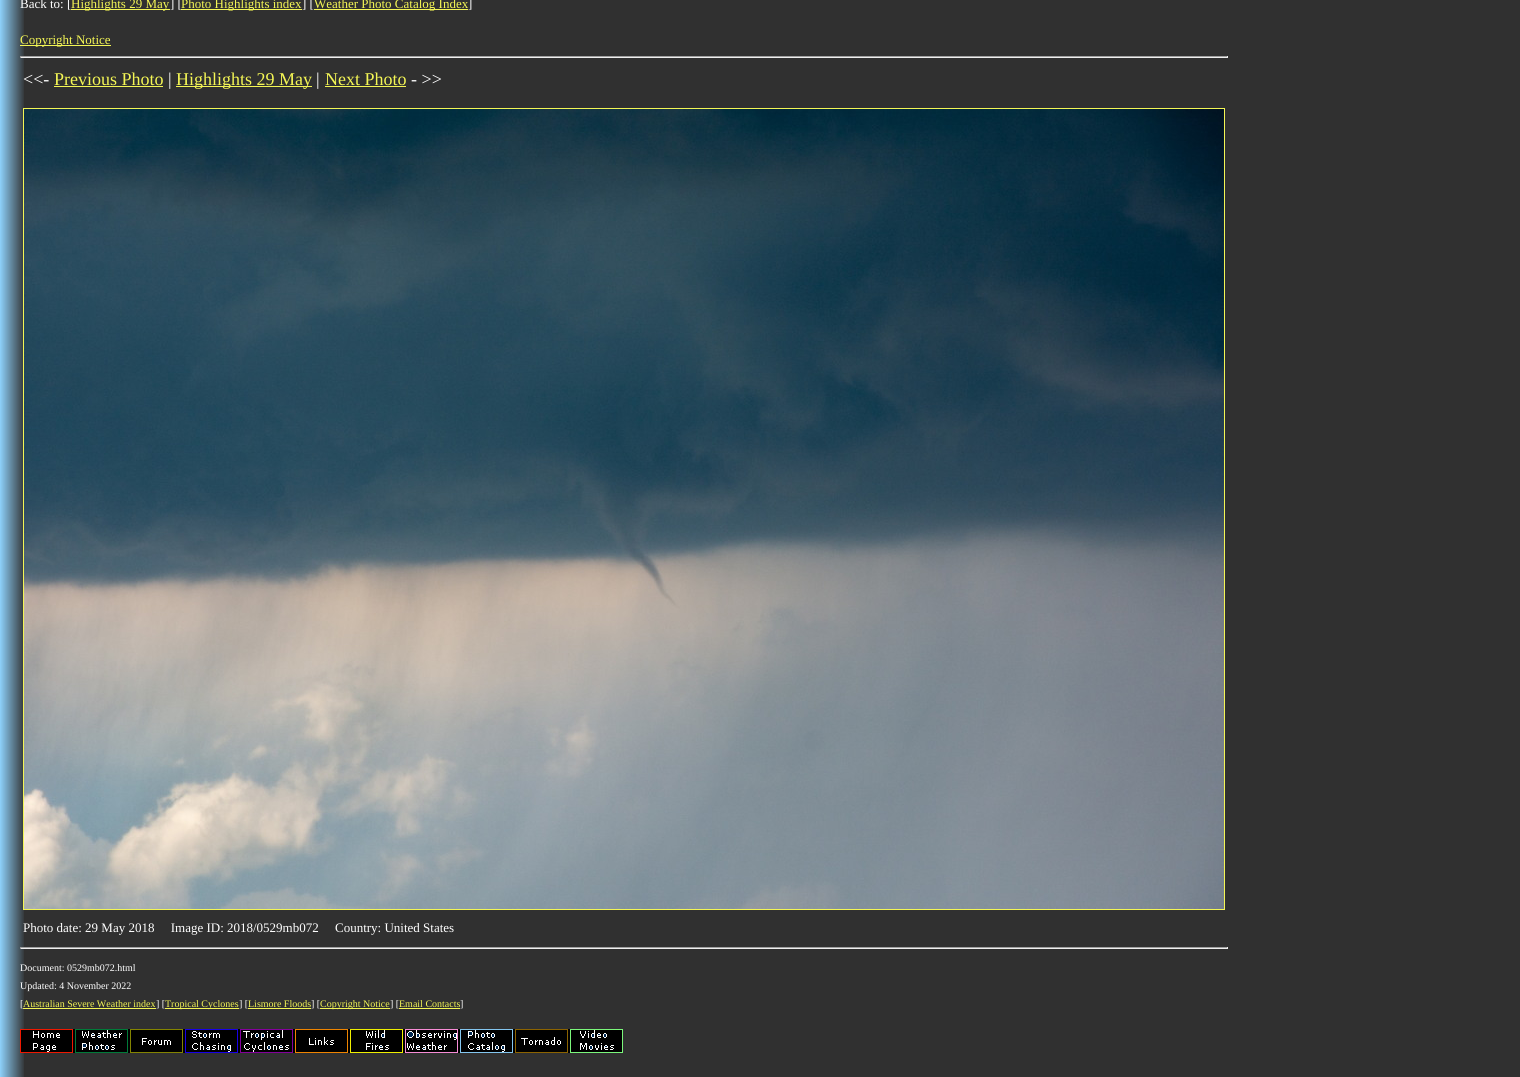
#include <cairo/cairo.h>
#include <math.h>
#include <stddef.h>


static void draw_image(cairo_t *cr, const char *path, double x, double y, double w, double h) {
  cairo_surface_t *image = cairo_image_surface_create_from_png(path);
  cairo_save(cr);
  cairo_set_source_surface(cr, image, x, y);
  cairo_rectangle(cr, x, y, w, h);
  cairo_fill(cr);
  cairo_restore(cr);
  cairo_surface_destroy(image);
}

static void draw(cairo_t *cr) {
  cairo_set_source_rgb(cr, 1, 1, 1);
  cairo_paint(cr);
  draw_image(cr, "images/1.png", 0, 0, 1520, 1077);
  cairo_set_source_rgb(cr, 244 / 255.0, 246 / 255.0, 85 / 255.0);
  cairo_rectangle(cr, 71, 9, 99, 1);
  cairo_fill(cr);
  cairo_rectangle(cr, 181, 9, 121, 1);
  cairo_fill(cr);
  cairo_rectangle(cr, 314, 9, 154, 1);
  cairo_fill(cr);
  cairo_rectangle(cr, 20, 45, 91, 1);
  cairo_fill(cr);
  cairo_set_source_rgb(cr, 159 / 255.0, 159 / 255.0, 159 / 255.0);
  cairo_rectangle(cr, 20, 56, 1208, 1);
  cairo_fill(cr);
  cairo_set_source_rgb(cr, 238 / 255.0, 238 / 255.0, 238 / 255.0);
  cairo_rectangle(cr, 1227, 56, 1, 2);
  cairo_fill(cr);
  cairo_rectangle(cr, 20, 57, 1208, 1);
  cairo_fill(cr);
  cairo_set_source_rgb(cr, 159 / 255.0, 159 / 255.0, 159 / 255.0);
  cairo_rectangle(cr, 20, 56, 1, 2);
  cairo_fill(cr);
  cairo_set_source_rgb(cr, 244 / 255.0, 246 / 255.0, 85 / 255.0);
  cairo_rectangle(cr, 54, 86, 109, 1);
  cairo_fill(cr);
  cairo_rectangle(cr, 176, 86, 136, 1);
  cairo_fill(cr);
  cairo_rectangle(cr, 325, 86, 81, 1);
  cairo_fill(cr);
  cairo_rectangle(cr, 23.5, 108.5, 1201, 801);
  cairo_set_line_width(cr, 1);
  cairo_stroke(cr);
  draw_image(cr, "images/2.png", 24, 109, 1200, 800);
  cairo_set_source_rgb(cr, 159 / 255.0, 159 / 255.0, 159 / 255.0);
  cairo_rectangle(cr, 20, 947, 1208, 1);
  cairo_fill(cr);
  cairo_set_source_rgb(cr, 238 / 255.0, 238 / 255.0, 238 / 255.0);
  cairo_rectangle(cr, 1227, 947, 1, 2);
  cairo_fill(cr);
  cairo_rectangle(cr, 20, 948, 1208, 1);
  cairo_fill(cr);
  cairo_set_source_rgb(cr, 159 / 255.0, 159 / 255.0, 159 / 255.0);
  cairo_rectangle(cr, 20, 947, 1, 2);
  cairo_fill(cr);
  cairo_set_source_rgb(cr, 244 / 255.0, 246 / 255.0, 85 / 255.0);
  cairo_rectangle(cr, 23, 1008, 133, 1);
  cairo_fill(cr);
  cairo_rectangle(cr, 165, 1008, 74, 1);
  cairo_fill(cr);
  cairo_rectangle(cr, 248, 1008, 63, 1);
  cairo_fill(cr);
  cairo_rectangle(cr, 320, 1008, 70, 1);
  cairo_fill(cr);
  cairo_rectangle(cr, 399, 1008, 61, 1);
  cairo_fill(cr);
  draw_image(cr, "images/3.png", 20, 1029, 603, 24);
  cairo_select_font_face(cr, "Liberation Serif", CAIRO_FONT_SLANT_NORMAL, CAIRO_FONT_WEIGHT_NORMAL);
  cairo_set_font_size(cr, 13);
  cairo_set_source_rgb(cr, 1, 1, 1);
  cairo_move_to(cr, 20, 8);
  cairo_show_text(cr, "Back to: [");
  cairo_set_source_rgb(cr, 244 / 255.0, 246 / 255.0, 85 / 255.0);
  cairo_move_to(cr, 71, 8);
  cairo_show_text(cr, "Highlights 29 May");
  cairo_set_source_rgb(cr, 1, 1, 1);
  cairo_move_to(cr, 170, 8);
  cairo_show_text(cr, "] [");
  cairo_set_source_rgb(cr, 244 / 255.0, 246 / 255.0, 85 / 255.0);
  cairo_move_to(cr, 181, 8);
  cairo_show_text(cr, "Photo Highlights index");
  cairo_set_source_rgb(cr, 1, 1, 1);
  cairo_move_to(cr, 302, 8);
  cairo_show_text(cr, "] [");
  cairo_set_source_rgb(cr, 244 / 255.0, 246 / 255.0, 85 / 255.0);
  cairo_move_to(cr, 314, 8);
  cairo_show_text(cr, "Weather Photo Catalog Index");
  cairo_set_source_rgb(cr, 1, 1, 1);
  cairo_move_to(cr, 468, 8);
  cairo_show_text(cr, "]");
  cairo_set_source_rgb(cr, 244 / 255.0, 246 / 255.0, 85 / 255.0);
  cairo_move_to(cr, 20, 44);
  cairo_show_text(cr, "Copyright Notice");
  cairo_set_font_size(cr, 18);
  cairo_set_source_rgb(cr, 1, 1, 1);
  cairo_move_to(cr, 23, 85);
  cairo_show_text(cr, "<<-");
  cairo_set_source_rgb(cr, 244 / 255.0, 246 / 255.0, 85 / 255.0);
  cairo_move_to(cr, 54, 85);
  cairo_show_text(cr, "Previous Photo");
  cairo_set_source_rgb(cr, 1, 1, 1);
  cairo_move_to(cr, 168, 85);
  cairo_show_text(cr, "|");
  cairo_set_source_rgb(cr, 244 / 255.0, 246 / 255.0, 85 / 255.0);
  cairo_move_to(cr, 176, 85);
  cairo_show_text(cr, "Highlights 29 May");
  cairo_set_source_rgb(cr, 1, 1, 1);
  cairo_move_to(cr, 316, 85);
  cairo_show_text(cr, "|");
  cairo_set_source_rgb(cr, 244 / 255.0, 246 / 255.0, 85 / 255.0);
  cairo_move_to(cr, 325, 85);
  cairo_show_text(cr, "Next Photo");
  cairo_set_source_rgb(cr, 1, 1, 1);
  cairo_move_to(cr, 411, 85);
  cairo_show_text(cr, "- >>");
  cairo_set_font_size(cr, 13);
  cairo_move_to(cr, 23, 932);
  cairo_show_text(cr, "Photo date: 29 May 2018     Image ID: 2018/0529mb072     Country: United States");
  cairo_set_font_size(cr, 10);
  cairo_move_to(cr, 20, 971);
  cairo_show_text(cr, "Document: 0529mb072.html");
  cairo_move_to(cr, 20, 989);
  cairo_show_text(cr, "Updated: 4 November 2022");
  cairo_move_to(cr, 20, 1007);
  cairo_show_text(cr, "[");
  cairo_set_source_rgb(cr, 244 / 255.0, 246 / 255.0, 85 / 255.0);
  cairo_move_to(cr, 23, 1007);
  cairo_show_text(cr, "Australian Severe Weather index");
  cairo_set_source_rgb(cr, 1, 1, 1);
  cairo_move_to(cr, 156, 1007);
  cairo_show_text(cr, "] [");
  cairo_set_source_rgb(cr, 244 / 255.0, 246 / 255.0, 85 / 255.0);
  cairo_move_to(cr, 165, 1007);
  cairo_show_text(cr, "Tropical Cyclones");
  cairo_set_source_rgb(cr, 1, 1, 1);
  cairo_move_to(cr, 239, 1007);
  cairo_show_text(cr, "] [");
  cairo_set_source_rgb(cr, 244 / 255.0, 246 / 255.0, 85 / 255.0);
  cairo_move_to(cr, 248, 1007);
  cairo_show_text(cr, "Lismore Floods");
  cairo_set_source_rgb(cr, 1, 1, 1);
  cairo_move_to(cr, 311, 1007);
  cairo_show_text(cr, "] [");
  cairo_set_source_rgb(cr, 244 / 255.0, 246 / 255.0, 85 / 255.0);
  cairo_move_to(cr, 320, 1007);
  cairo_show_text(cr, "Copyright Notice");
  cairo_set_source_rgb(cr, 1, 1, 1);
  cairo_move_to(cr, 390, 1007);
  cairo_show_text(cr, "] [");
  cairo_set_source_rgb(cr, 244 / 255.0, 246 / 255.0, 85 / 255.0);
  cairo_move_to(cr, 399, 1007);
  cairo_show_text(cr, "Email Contacts");
  cairo_set_source_rgb(cr, 1, 1, 1);
  cairo_move_to(cr, 460, 1007);
  cairo_show_text(cr, "]");
}

int main(void) {
  cairo_surface_t *surface = cairo_image_surface_create(CAIRO_FORMAT_RGB24, 1520, 1077);
  cairo_t *cr = cairo_create(surface);
  cairo_font_options_t *options = cairo_font_options_create();
  cairo_font_options_set_hint_metrics(options, CAIRO_HINT_METRICS_OFF);
  cairo_font_options_set_hint_style(options, CAIRO_HINT_STYLE_NONE);
  cairo_set_font_options(cr, options);
  cairo_set_miter_limit(cr, 4);
  draw(cr);
  cairo_surface_write_to_png(surface, "out.png");
  cairo_font_options_destroy(options);
  cairo_destroy(cr);
  cairo_surface_destroy(surface);
  return 0;
}
